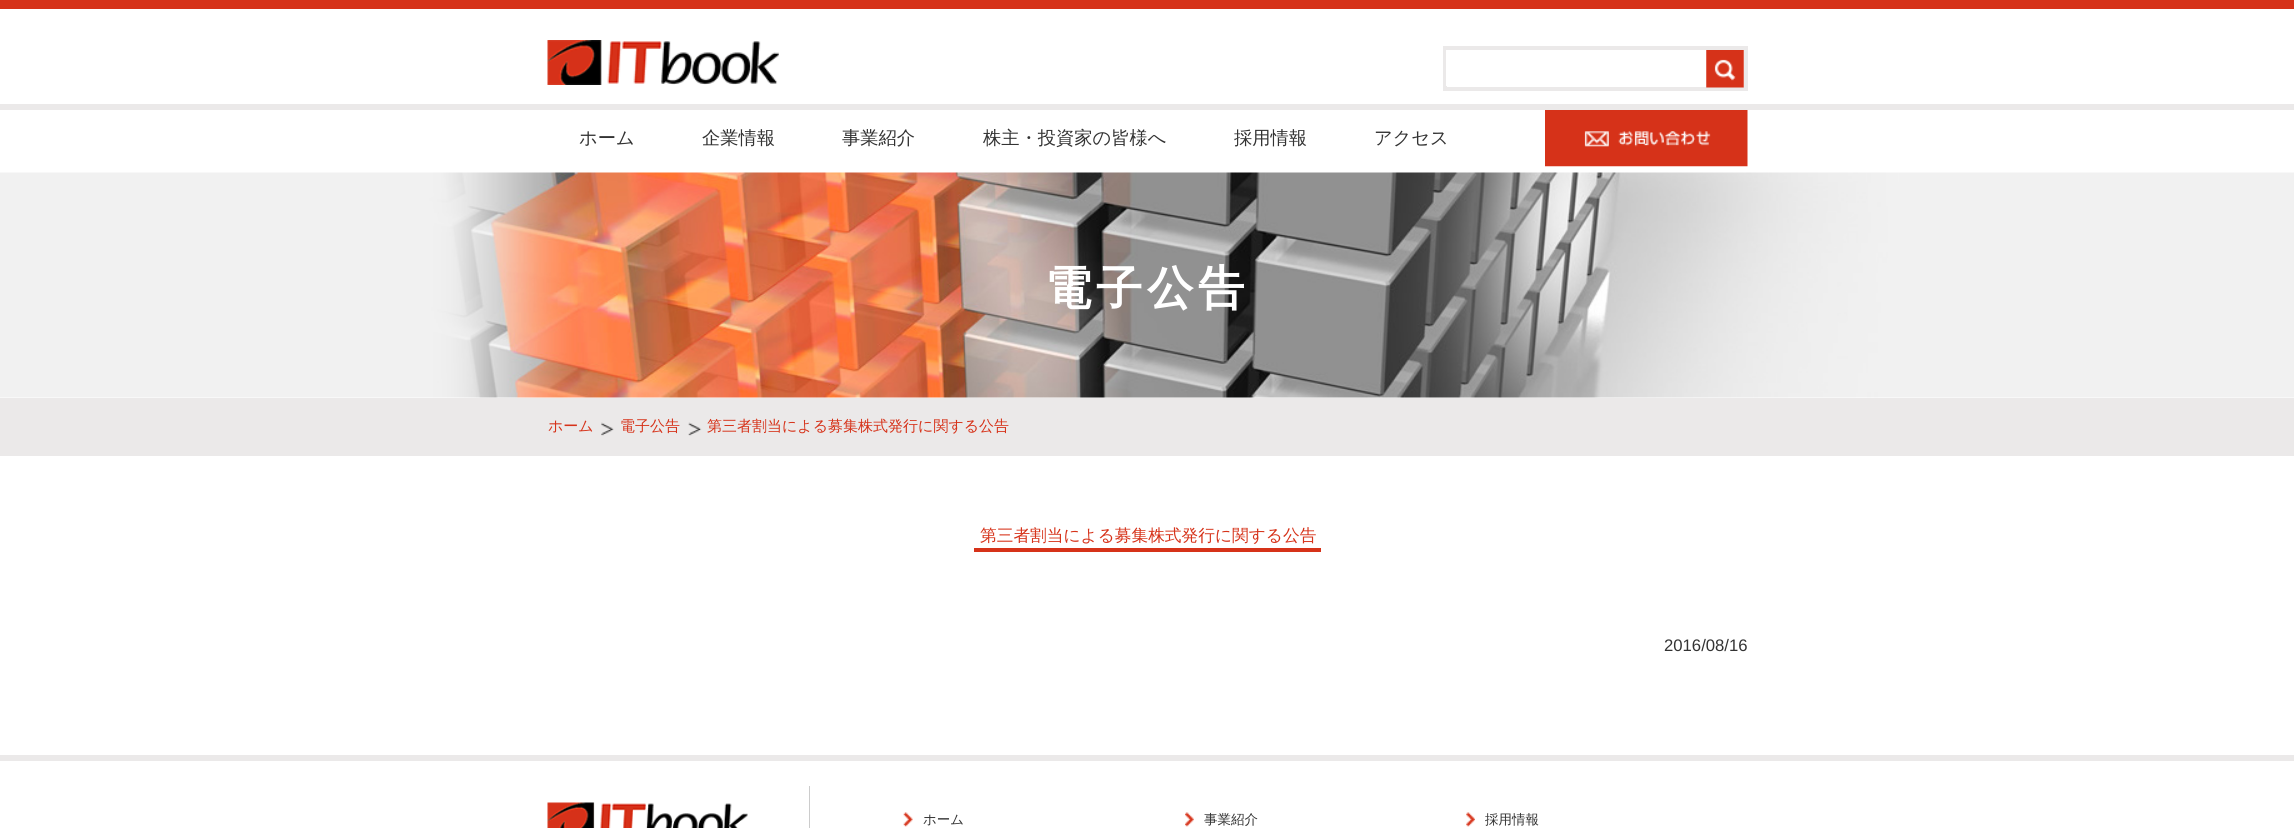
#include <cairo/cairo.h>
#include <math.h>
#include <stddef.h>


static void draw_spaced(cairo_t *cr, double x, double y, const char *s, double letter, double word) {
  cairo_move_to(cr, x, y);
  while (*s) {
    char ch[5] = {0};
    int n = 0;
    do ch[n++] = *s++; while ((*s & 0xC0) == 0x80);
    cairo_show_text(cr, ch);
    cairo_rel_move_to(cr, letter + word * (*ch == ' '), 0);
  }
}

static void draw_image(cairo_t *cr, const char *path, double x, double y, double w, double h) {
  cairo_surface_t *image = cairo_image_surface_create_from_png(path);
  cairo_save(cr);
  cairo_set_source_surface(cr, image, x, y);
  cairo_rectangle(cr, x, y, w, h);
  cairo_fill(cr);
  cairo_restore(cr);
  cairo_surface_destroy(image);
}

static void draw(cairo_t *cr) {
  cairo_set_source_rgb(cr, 1, 1, 1);
  cairo_paint(cr);
  cairo_set_source_rgb(cr, 214 / 255.0, 50 / 255.0, 25 / 255.0);
  cairo_rectangle(cr, 0, 0, 2294, 9);
  cairo_fill(cr);
  draw_image(cr, "images/1.png", 547, 40, 232, 45);
  cairo_rectangle(cr, 1445, 48, 301, 41);
  cairo_set_source_rgb(cr, 235 / 255.0, 233 / 255.0, 233 / 255.0);
  cairo_set_line_width(cr, 4);
  cairo_stroke(cr);
  cairo_set_source_rgb(cr, 1, 1, 1);
  cairo_rectangle(cr, 1446, 50, 1, 36);
  cairo_fill(cr);
  draw_image(cr, "images/2.png", 1706, 50, 38, 38);
  cairo_set_source_rgb(cr, 235 / 255.0, 233 / 255.0, 233 / 255.0);
  cairo_rectangle(cr, 0, 104, 2294, 6);
  cairo_fill(cr);
  draw_image(cr, "images/3.png", 1545, 110, 203, 57);
  draw_image(cr, "images/4.png", 0, 172, 2294, 226);
  cairo_rectangle(cr, 0, 398, 2294, 58);
  cairo_fill(cr);
  draw_image(cr, "images/5.png", 601, 422, 13, 14);
  draw_image(cr, "images/6.png", 688, 422, 14, 14);
  cairo_set_source_rgb(cr, 214 / 255.0, 50 / 255.0, 25 / 255.0);
  cairo_rectangle(cr, 974, 548, 347, 4);
  cairo_fill(cr);
  cairo_set_source_rgb(cr, 235 / 255.0, 233 / 255.0, 233 / 255.0);
  cairo_rectangle(cr, 0, 755, 2294, 6);
  cairo_fill(cr);
  draw_image(cr, "images/7.png", 547, 802, 201, 26);
  cairo_set_source_rgb(cr, 204 / 255.0, 204 / 255.0, 204 / 255.0);
  cairo_rectangle(cr, 809, 786, 1, 42);
  cairo_fill(cr);
  draw_image(cr, "images/8.png", 903, 812, 10, 15);
  draw_image(cr, "images/9.png", 1185, 812, 9, 15);
  draw_image(cr, "images/10.png", 1466, 812, 9, 15);
  cairo_select_font_face(cr, "WenQuanYi Zen Hei Medium", CAIRO_FONT_SLANT_NORMAL, CAIRO_FONT_WEIGHT_NORMAL);
  cairo_set_font_size(cr, 18.25);
  cairo_set_source_rgb(cr, 51 / 255.0, 51 / 255.0, 51 / 255.0);
  cairo_move_to(cr, 579, 144);
  cairo_show_text(cr, "ホーム");
  cairo_move_to(cr, 702, 144);
  cairo_show_text(cr, "企業情報");
  cairo_move_to(cr, 842, 144);
  cairo_show_text(cr, "事業紹介");
  cairo_move_to(cr, 983, 144);
  cairo_show_text(cr, "株主・投資家の皆様へ");
  cairo_move_to(cr, 1234, 144);
  cairo_show_text(cr, "採用情報");
  cairo_move_to(cr, 1374, 144);
  cairo_show_text(cr, "アクセス");
  cairo_select_font_face(cr, "WenQuanYi Zen Hei", CAIRO_FONT_SLANT_NORMAL, CAIRO_FONT_WEIGHT_BOLD);
  cairo_set_font_size(cr, 46.5);
  cairo_set_source_rgb(cr, 1, 1, 1);
  draw_spaced(cr, 1045, 304, "電子公告", 4.5, 0);
  cairo_select_font_face(cr, "WenQuanYi Zen Hei Medium", CAIRO_FONT_SLANT_NORMAL, CAIRO_FONT_WEIGHT_NORMAL);
  cairo_set_font_size(cr, 15);
  cairo_set_source_rgb(cr, 214 / 255.0, 50 / 255.0, 25 / 255.0);
  cairo_move_to(cr, 548, 431);
  cairo_show_text(cr, "ホーム");
  cairo_move_to(cr, 620, 431);
  cairo_show_text(cr, "電子公告");
  cairo_move_to(cr, 707, 431);
  cairo_show_text(cr, "第三者割当による募集株式発行に関する公告");
  cairo_set_font_size(cr, 16.7);
  cairo_move_to(cr, 980, 541);
  cairo_show_text(cr, "第三者割当による募集株式発行に関する公告");
  cairo_select_font_face(cr, "Liberation Sans", CAIRO_FONT_SLANT_NORMAL, CAIRO_FONT_WEIGHT_NORMAL);
  cairo_set_source_rgb(cr, 51 / 255.0, 51 / 255.0, 51 / 255.0);
  cairo_move_to(cr, 1664, 651);
  cairo_show_text(cr, "2016/08/16");
  cairo_select_font_face(cr, "WenQuanYi Zen Hei Medium", CAIRO_FONT_SLANT_NORMAL, CAIRO_FONT_WEIGHT_NORMAL);
  cairo_set_font_size(cr, 13.5);
  cairo_move_to(cr, 923, 824);
  cairo_show_text(cr, "ホーム");
  cairo_move_to(cr, 1204, 824);
  cairo_show_text(cr, "事業紹介");
  cairo_move_to(cr, 1485, 824);
  cairo_show_text(cr, "採用情報");
}

int main(void) {
  cairo_surface_t *surface = cairo_image_surface_create(CAIRO_FORMAT_RGB24, 2294, 828);
  cairo_t *cr = cairo_create(surface);
  cairo_font_options_t *options = cairo_font_options_create();
  cairo_font_options_set_hint_metrics(options, CAIRO_HINT_METRICS_OFF);
  cairo_font_options_set_hint_style(options, CAIRO_HINT_STYLE_NONE);
  cairo_set_font_options(cr, options);
  cairo_set_miter_limit(cr, 4);
  draw(cr);
  cairo_surface_write_to_png(surface, "out.png");
  cairo_font_options_destroy(options);
  cairo_destroy(cr);
  cairo_surface_destroy(surface);
  return 0;
}
